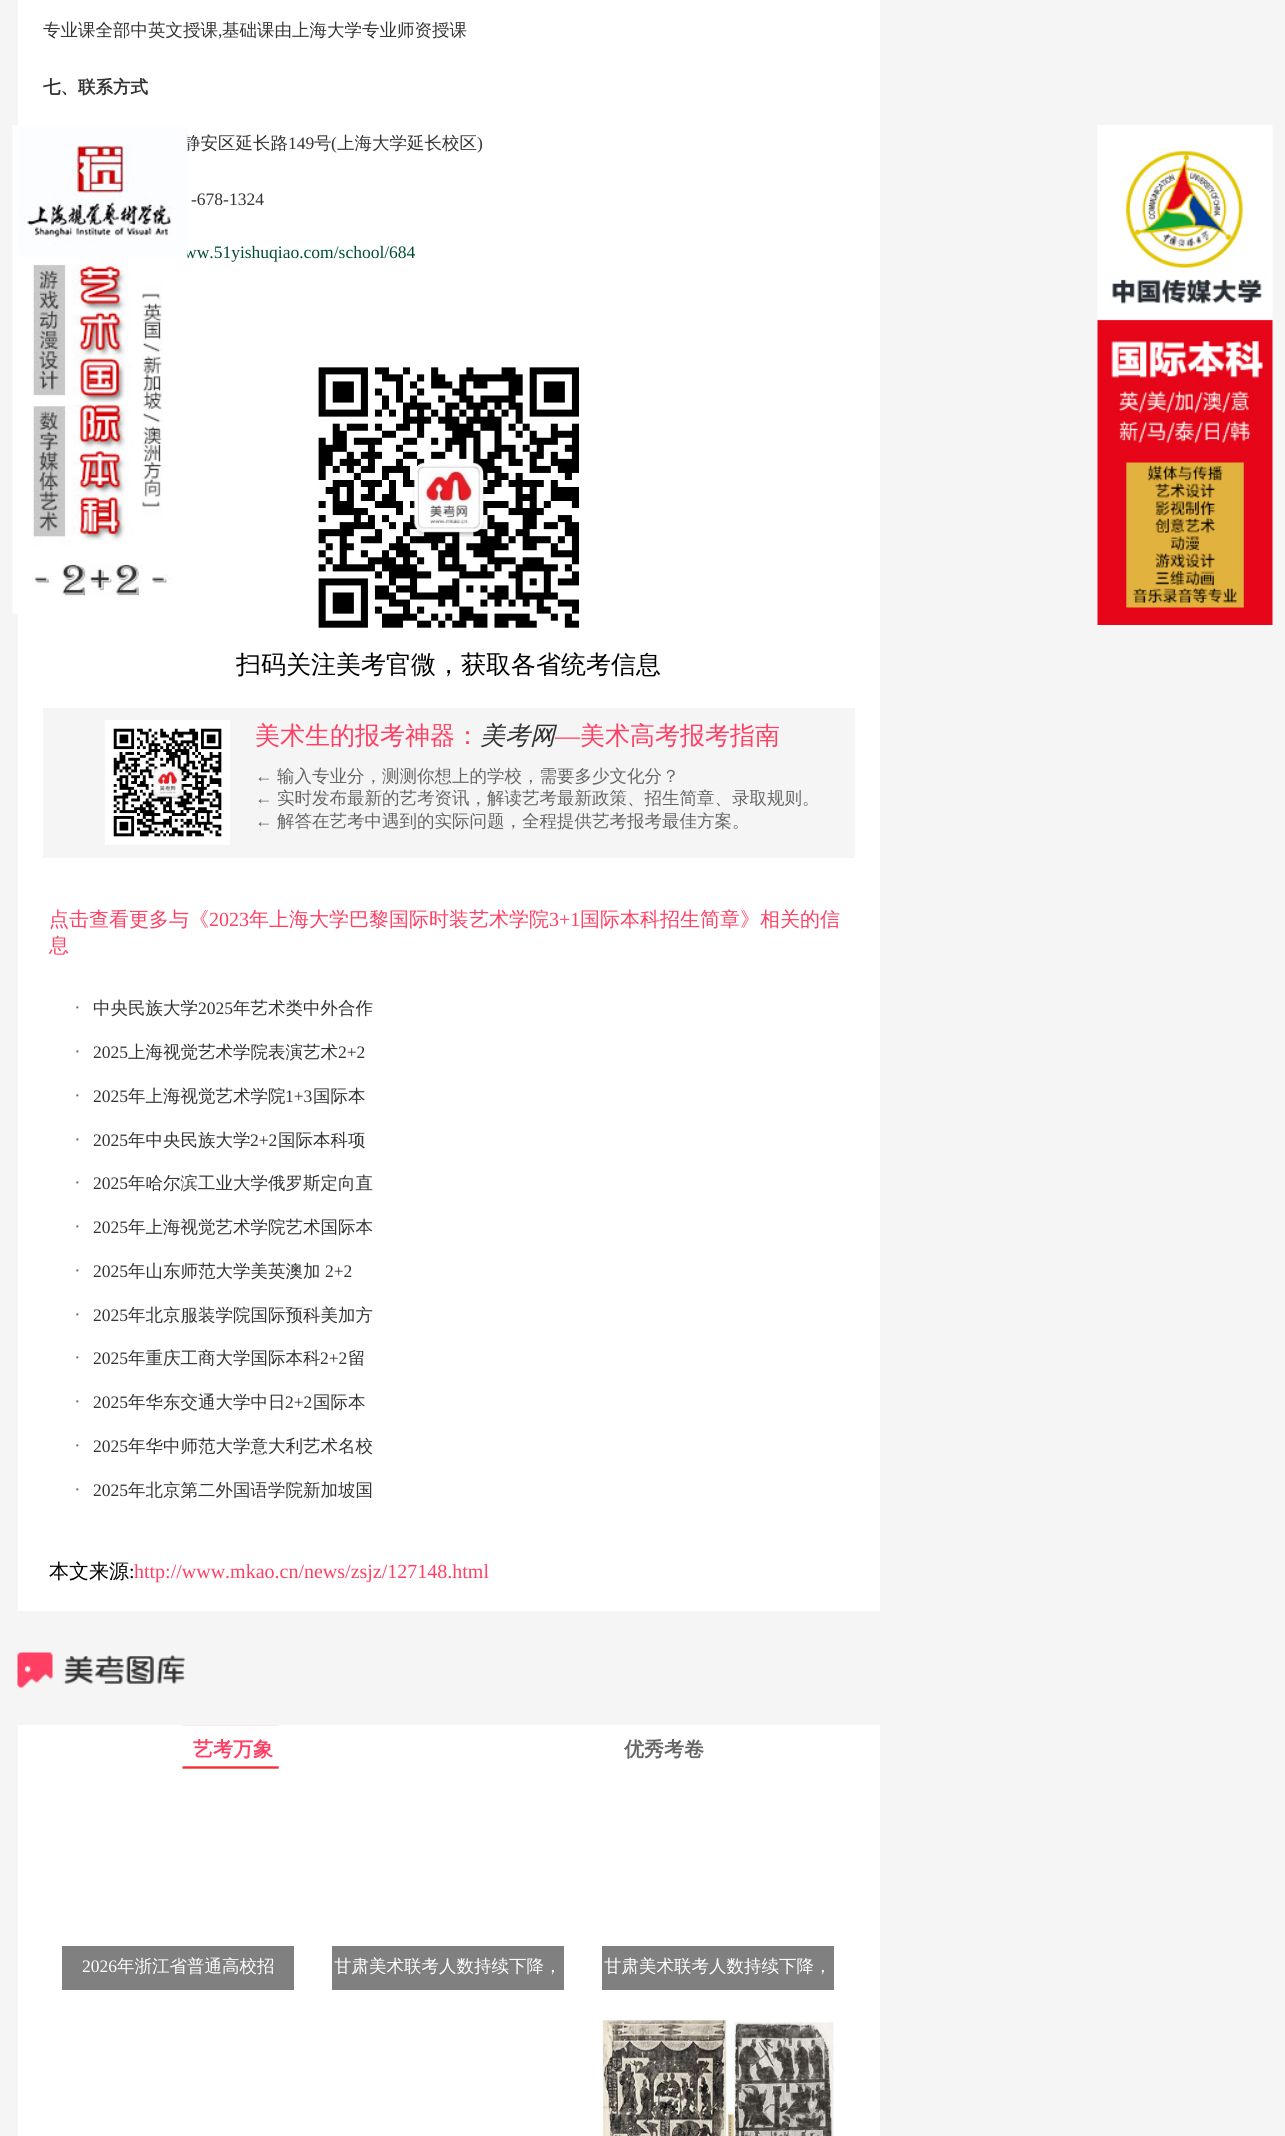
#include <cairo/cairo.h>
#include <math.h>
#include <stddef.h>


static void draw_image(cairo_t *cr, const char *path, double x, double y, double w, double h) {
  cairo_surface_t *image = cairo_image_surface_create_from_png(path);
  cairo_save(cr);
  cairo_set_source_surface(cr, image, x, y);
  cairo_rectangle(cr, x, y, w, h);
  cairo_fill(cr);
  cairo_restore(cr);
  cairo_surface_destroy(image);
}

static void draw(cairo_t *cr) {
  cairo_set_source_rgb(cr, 245 / 255.0, 245 / 255.0, 245 / 255.0);
  cairo_paint(cr);
  cairo_set_source_rgb(cr, 1, 1, 1);
  cairo_rectangle(cr, 18, 0, 862, 2136);
  cairo_fill(cr);
  draw_image(cr, "images/1.png", 318, 367, 261, 261);
  cairo_set_source_rgb(cr, 245 / 255.0, 245 / 255.0, 245 / 255.0);
  cairo_rectangle(cr, 43, 708, 812, 150);
  cairo_fill(cr);
  draw_image(cr, "images/2.png", 105, 720, 125, 125);
  cairo_rectangle(cr, 18, 1611, 862, 114);
  cairo_fill(cr);
  draw_image(cr, "images/3.png", 17, 1652, 169, 36);
  draw_image(cr, "images/4.png", 182, 1725, 97, 44);
  cairo_set_source_rgb(cr, 128 / 255.0, 128 / 255.0, 128 / 255.0);
  cairo_rectangle(cr, 62, 1946, 232, 44);
  cairo_fill(cr);
  cairo_rectangle(cr, 332, 1946, 232, 44);
  cairo_fill(cr);
  cairo_rectangle(cr, 602, 1946, 232, 44);
  cairo_fill(cr);
  draw_image(cr, "images/5.png", 602, 2020, 232, 116);
  draw_image(cr, "images/6.png", 1097, 125, 176, 500);
  cairo_select_font_face(cr, "WenQuanYi Zen Hei Medium", CAIRO_FONT_SLANT_NORMAL, CAIRO_FONT_WEIGHT_NORMAL);
  cairo_set_font_size(cr, 17.5);
  cairo_set_source_rgb(cr, 51 / 255.0, 51 / 255.0, 51 / 255.0);
  cairo_move_to(cr, 43, 36);
  cairo_show_text(cr, "专业课全部中英文授课");
  cairo_select_font_face(cr, "Liberation Serif", CAIRO_FONT_SLANT_NORMAL, CAIRO_FONT_WEIGHT_NORMAL);
  cairo_move_to(cr, 218, 36);
  cairo_show_text(cr, ",");
  cairo_select_font_face(cr, "WenQuanYi Zen Hei Medium", CAIRO_FONT_SLANT_NORMAL, CAIRO_FONT_WEIGHT_NORMAL);
  cairo_move_to(cr, 222, 36);
  cairo_show_text(cr, "基础课由上海大学专业师资授课");
  cairo_select_font_face(cr, "WenQuanYi Zen Hei", CAIRO_FONT_SLANT_NORMAL, CAIRO_FONT_WEIGHT_BOLD);
  cairo_move_to(cr, 43, 93);
  cairo_show_text(cr, "七、联系方式");
  cairo_select_font_face(cr, "WenQuanYi Zen Hei Medium", CAIRO_FONT_SLANT_NORMAL, CAIRO_FONT_WEIGHT_NORMAL);
  cairo_move_to(cr, 183, 149);
  cairo_show_text(cr, "静安区延长路");
  cairo_select_font_face(cr, "Liberation Serif", CAIRO_FONT_SLANT_NORMAL, CAIRO_FONT_WEIGHT_NORMAL);
  cairo_move_to(cr, 288, 149);
  cairo_show_text(cr, "149");
  cairo_select_font_face(cr, "WenQuanYi Zen Hei Medium", CAIRO_FONT_SLANT_NORMAL, CAIRO_FONT_WEIGHT_NORMAL);
  cairo_move_to(cr, 314, 149);
  cairo_show_text(cr, "号");
  cairo_select_font_face(cr, "Liberation Serif", CAIRO_FONT_SLANT_NORMAL, CAIRO_FONT_WEIGHT_NORMAL);
  cairo_move_to(cr, 331, 149);
  cairo_show_text(cr, "(");
  cairo_select_font_face(cr, "WenQuanYi Zen Hei Medium", CAIRO_FONT_SLANT_NORMAL, CAIRO_FONT_WEIGHT_NORMAL);
  cairo_move_to(cr, 337, 149);
  cairo_show_text(cr, "上海大学延长校区");
  cairo_select_font_face(cr, "Liberation Serif", CAIRO_FONT_SLANT_NORMAL, CAIRO_FONT_WEIGHT_NORMAL);
  cairo_move_to(cr, 477, 149);
  cairo_show_text(cr, ")");
  cairo_move_to(cr, 191, 205);
  cairo_show_text(cr, "-678-1324");
  cairo_set_source_rgb(cr, 0, 78 / 255.0, 49 / 255.0);
  cairo_move_to(cr, 184, 258);
  cairo_show_text(cr, "ww.51yishuqiao.com/school/684");
  cairo_select_font_face(cr, "WenQuanYi Zen Hei Medium", CAIRO_FONT_SLANT_NORMAL, CAIRO_FONT_WEIGHT_NORMAL);
  cairo_set_font_size(cr, 25);
  cairo_set_source_rgb(cr, 0, 0, 0);
  cairo_move_to(cr, 236, 673);
  cairo_show_text(cr, "扫码关注美考官微，获取各省统考信息");
  cairo_set_source_rgb(cr, 1, 63 / 255.0, 99 / 255.0);
  cairo_move_to(cr, 255, 744);
  cairo_show_text(cr, "美术生的报考神器：");
  cairo_select_font_face(cr, "WenQuanYi Zen Hei Medium", CAIRO_FONT_SLANT_ITALIC, CAIRO_FONT_WEIGHT_NORMAL);
  cairo_set_source_rgb(cr, 51 / 255.0, 51 / 255.0, 51 / 255.0);
  cairo_move_to(cr, 480, 744);
  cairo_show_text(cr, "美考网");
  cairo_select_font_face(cr, "Liberation Serif", CAIRO_FONT_SLANT_NORMAL, CAIRO_FONT_WEIGHT_NORMAL);
  cairo_set_source_rgb(cr, 1, 63 / 255.0, 99 / 255.0);
  cairo_move_to(cr, 555, 744);
  cairo_show_text(cr, "—");
  cairo_select_font_face(cr, "WenQuanYi Zen Hei Medium", CAIRO_FONT_SLANT_NORMAL, CAIRO_FONT_WEIGHT_NORMAL);
  cairo_move_to(cr, 580, 744);
  cairo_show_text(cr, "美术高考报考指南");
  cairo_select_font_face(cr, "Liberation Serif", CAIRO_FONT_SLANT_NORMAL, CAIRO_FONT_WEIGHT_NORMAL);
  cairo_set_font_size(cr, 17.5);
  cairo_set_source_rgb(cr, 102 / 255.0, 102 / 255.0, 102 / 255.0);
  cairo_move_to(cr, 255, 782);
  cairo_show_text(cr, "←");
  cairo_select_font_face(cr, "WenQuanYi Zen Hei Medium", CAIRO_FONT_SLANT_NORMAL, CAIRO_FONT_WEIGHT_NORMAL);
  cairo_move_to(cr, 277, 782);
  cairo_show_text(cr, "输入专业分，测测你想上的学校，需要多少文化分？");
  cairo_select_font_face(cr, "Liberation Serif", CAIRO_FONT_SLANT_NORMAL, CAIRO_FONT_WEIGHT_NORMAL);
  cairo_move_to(cr, 255, 804);
  cairo_show_text(cr, "←");
  cairo_select_font_face(cr, "WenQuanYi Zen Hei Medium", CAIRO_FONT_SLANT_NORMAL, CAIRO_FONT_WEIGHT_NORMAL);
  cairo_move_to(cr, 277, 804);
  cairo_show_text(cr, "实时发布最新的艺考资讯，解读艺考最新政策、招生简章、录取规则。");
  cairo_select_font_face(cr, "Liberation Serif", CAIRO_FONT_SLANT_NORMAL, CAIRO_FONT_WEIGHT_NORMAL);
  cairo_move_to(cr, 255, 827);
  cairo_show_text(cr, "←");
  cairo_select_font_face(cr, "WenQuanYi Zen Hei Medium", CAIRO_FONT_SLANT_NORMAL, CAIRO_FONT_WEIGHT_NORMAL);
  cairo_move_to(cr, 277, 827);
  cairo_show_text(cr, "解答在艺考中遇到的实际问题，全程提供艺考报考最佳方案。");
  cairo_set_font_size(cr, 20);
  cairo_set_source_rgb(cr, 1, 63 / 255.0, 99 / 255.0);
  cairo_move_to(cr, 49, 926);
  cairo_show_text(cr, "点击查看更多与《");
  cairo_select_font_face(cr, "Liberation Serif", CAIRO_FONT_SLANT_NORMAL, CAIRO_FONT_WEIGHT_NORMAL);
  cairo_move_to(cr, 209, 926);
  cairo_show_text(cr, "2023");
  cairo_select_font_face(cr, "WenQuanYi Zen Hei Medium", CAIRO_FONT_SLANT_NORMAL, CAIRO_FONT_WEIGHT_NORMAL);
  cairo_move_to(cr, 249, 926);
  cairo_show_text(cr, "年上海大学巴黎国际时装艺术学院");
  cairo_select_font_face(cr, "Liberation Serif", CAIRO_FONT_SLANT_NORMAL, CAIRO_FONT_WEIGHT_NORMAL);
  cairo_move_to(cr, 549, 926);
  cairo_show_text(cr, "3+1");
  cairo_select_font_face(cr, "WenQuanYi Zen Hei Medium", CAIRO_FONT_SLANT_NORMAL, CAIRO_FONT_WEIGHT_NORMAL);
  cairo_move_to(cr, 580, 926);
  cairo_show_text(cr, "国际本科招生简章》相关的信");
  cairo_move_to(cr, 49, 952);
  cairo_show_text(cr, "息");
  cairo_select_font_face(cr, "Liberation Serif", CAIRO_FONT_SLANT_NORMAL, CAIRO_FONT_WEIGHT_NORMAL);
  cairo_set_source_rgb(cr, 121 / 255.0, 121 / 255.0, 121 / 255.0);
  cairo_move_to(cr, 74, 1014);
  cairo_show_text(cr, "·");
  cairo_select_font_face(cr, "WenQuanYi Zen Hei Medium", CAIRO_FONT_SLANT_NORMAL, CAIRO_FONT_WEIGHT_NORMAL);
  cairo_set_font_size(cr, 17.5);
  cairo_set_source_rgb(cr, 51 / 255.0, 51 / 255.0, 51 / 255.0);
  cairo_move_to(cr, 93, 1014);
  cairo_show_text(cr, "中央民族大学");
  cairo_select_font_face(cr, "Liberation Serif", CAIRO_FONT_SLANT_NORMAL, CAIRO_FONT_WEIGHT_NORMAL);
  cairo_move_to(cr, 198, 1014);
  cairo_show_text(cr, "2025");
  cairo_select_font_face(cr, "WenQuanYi Zen Hei Medium", CAIRO_FONT_SLANT_NORMAL, CAIRO_FONT_WEIGHT_NORMAL);
  cairo_move_to(cr, 233, 1014);
  cairo_show_text(cr, "年艺术类中外合作");
  cairo_select_font_face(cr, "Liberation Serif", CAIRO_FONT_SLANT_NORMAL, CAIRO_FONT_WEIGHT_NORMAL);
  cairo_set_font_size(cr, 20);
  cairo_set_source_rgb(cr, 121 / 255.0, 121 / 255.0, 121 / 255.0);
  cairo_move_to(cr, 74, 1058);
  cairo_show_text(cr, "·");
  cairo_set_font_size(cr, 17.5);
  cairo_set_source_rgb(cr, 51 / 255.0, 51 / 255.0, 51 / 255.0);
  cairo_move_to(cr, 93, 1058);
  cairo_show_text(cr, "2025");
  cairo_select_font_face(cr, "WenQuanYi Zen Hei Medium", CAIRO_FONT_SLANT_NORMAL, CAIRO_FONT_WEIGHT_NORMAL);
  cairo_move_to(cr, 128, 1058);
  cairo_show_text(cr, "上海视觉艺术学院表演艺术");
  cairo_select_font_face(cr, "Liberation Serif", CAIRO_FONT_SLANT_NORMAL, CAIRO_FONT_WEIGHT_NORMAL);
  cairo_move_to(cr, 338, 1058);
  cairo_show_text(cr, "2+2");
  cairo_set_font_size(cr, 20);
  cairo_set_source_rgb(cr, 121 / 255.0, 121 / 255.0, 121 / 255.0);
  cairo_move_to(cr, 74, 1102);
  cairo_show_text(cr, "·");
  cairo_set_font_size(cr, 17.5);
  cairo_set_source_rgb(cr, 51 / 255.0, 51 / 255.0, 51 / 255.0);
  cairo_move_to(cr, 93, 1102);
  cairo_show_text(cr, "2025");
  cairo_select_font_face(cr, "WenQuanYi Zen Hei Medium", CAIRO_FONT_SLANT_NORMAL, CAIRO_FONT_WEIGHT_NORMAL);
  cairo_move_to(cr, 128, 1102);
  cairo_show_text(cr, "年上海视觉艺术学院");
  cairo_select_font_face(cr, "Liberation Serif", CAIRO_FONT_SLANT_NORMAL, CAIRO_FONT_WEIGHT_NORMAL);
  cairo_move_to(cr, 285, 1102);
  cairo_show_text(cr, "1+3");
  cairo_select_font_face(cr, "WenQuanYi Zen Hei Medium", CAIRO_FONT_SLANT_NORMAL, CAIRO_FONT_WEIGHT_NORMAL);
  cairo_move_to(cr, 313, 1102);
  cairo_show_text(cr, "国际本");
  cairo_select_font_face(cr, "Liberation Serif", CAIRO_FONT_SLANT_NORMAL, CAIRO_FONT_WEIGHT_NORMAL);
  cairo_set_font_size(cr, 20);
  cairo_set_source_rgb(cr, 121 / 255.0, 121 / 255.0, 121 / 255.0);
  cairo_move_to(cr, 74, 1146);
  cairo_show_text(cr, "·");
  cairo_set_font_size(cr, 17.5);
  cairo_set_source_rgb(cr, 51 / 255.0, 51 / 255.0, 51 / 255.0);
  cairo_move_to(cr, 93, 1146);
  cairo_show_text(cr, "2025");
  cairo_select_font_face(cr, "WenQuanYi Zen Hei Medium", CAIRO_FONT_SLANT_NORMAL, CAIRO_FONT_WEIGHT_NORMAL);
  cairo_move_to(cr, 128, 1146);
  cairo_show_text(cr, "年中央民族大学");
  cairo_select_font_face(cr, "Liberation Serif", CAIRO_FONT_SLANT_NORMAL, CAIRO_FONT_WEIGHT_NORMAL);
  cairo_move_to(cr, 250, 1146);
  cairo_show_text(cr, "2+2");
  cairo_select_font_face(cr, "WenQuanYi Zen Hei Medium", CAIRO_FONT_SLANT_NORMAL, CAIRO_FONT_WEIGHT_NORMAL);
  cairo_move_to(cr, 278, 1146);
  cairo_show_text(cr, "国际本科项");
  cairo_select_font_face(cr, "Liberation Serif", CAIRO_FONT_SLANT_NORMAL, CAIRO_FONT_WEIGHT_NORMAL);
  cairo_set_font_size(cr, 20);
  cairo_set_source_rgb(cr, 121 / 255.0, 121 / 255.0, 121 / 255.0);
  cairo_move_to(cr, 74, 1189);
  cairo_show_text(cr, "·");
  cairo_set_font_size(cr, 17.5);
  cairo_set_source_rgb(cr, 51 / 255.0, 51 / 255.0, 51 / 255.0);
  cairo_move_to(cr, 93, 1189);
  cairo_show_text(cr, "2025");
  cairo_select_font_face(cr, "WenQuanYi Zen Hei Medium", CAIRO_FONT_SLANT_NORMAL, CAIRO_FONT_WEIGHT_NORMAL);
  cairo_move_to(cr, 128, 1189);
  cairo_show_text(cr, "年哈尔滨工业大学俄罗斯定向直");
  cairo_select_font_face(cr, "Liberation Serif", CAIRO_FONT_SLANT_NORMAL, CAIRO_FONT_WEIGHT_NORMAL);
  cairo_set_font_size(cr, 20);
  cairo_set_source_rgb(cr, 121 / 255.0, 121 / 255.0, 121 / 255.0);
  cairo_move_to(cr, 74, 1233);
  cairo_show_text(cr, "·");
  cairo_set_font_size(cr, 17.5);
  cairo_set_source_rgb(cr, 51 / 255.0, 51 / 255.0, 51 / 255.0);
  cairo_move_to(cr, 93, 1233);
  cairo_show_text(cr, "2025");
  cairo_select_font_face(cr, "WenQuanYi Zen Hei Medium", CAIRO_FONT_SLANT_NORMAL, CAIRO_FONT_WEIGHT_NORMAL);
  cairo_move_to(cr, 128, 1233);
  cairo_show_text(cr, "年上海视觉艺术学院艺术国际本");
  cairo_select_font_face(cr, "Liberation Serif", CAIRO_FONT_SLANT_NORMAL, CAIRO_FONT_WEIGHT_NORMAL);
  cairo_set_font_size(cr, 20);
  cairo_set_source_rgb(cr, 121 / 255.0, 121 / 255.0, 121 / 255.0);
  cairo_move_to(cr, 74, 1277);
  cairo_show_text(cr, "·");
  cairo_set_font_size(cr, 17.5);
  cairo_set_source_rgb(cr, 51 / 255.0, 51 / 255.0, 51 / 255.0);
  cairo_move_to(cr, 93, 1277);
  cairo_show_text(cr, "2025");
  cairo_select_font_face(cr, "WenQuanYi Zen Hei Medium", CAIRO_FONT_SLANT_NORMAL, CAIRO_FONT_WEIGHT_NORMAL);
  cairo_move_to(cr, 128, 1277);
  cairo_show_text(cr, "年山东师范大学美英澳加");
  cairo_select_font_face(cr, "Liberation Serif", CAIRO_FONT_SLANT_NORMAL, CAIRO_FONT_WEIGHT_NORMAL);
  cairo_move_to(cr, 325, 1277);
  cairo_show_text(cr, "2+2");
  cairo_set_font_size(cr, 20);
  cairo_set_source_rgb(cr, 121 / 255.0, 121 / 255.0, 121 / 255.0);
  cairo_move_to(cr, 74, 1321);
  cairo_show_text(cr, "·");
  cairo_set_font_size(cr, 17.5);
  cairo_set_source_rgb(cr, 51 / 255.0, 51 / 255.0, 51 / 255.0);
  cairo_move_to(cr, 93, 1321);
  cairo_show_text(cr, "2025");
  cairo_select_font_face(cr, "WenQuanYi Zen Hei Medium", CAIRO_FONT_SLANT_NORMAL, CAIRO_FONT_WEIGHT_NORMAL);
  cairo_move_to(cr, 128, 1321);
  cairo_show_text(cr, "年北京服装学院国际预科美加方");
  cairo_select_font_face(cr, "Liberation Serif", CAIRO_FONT_SLANT_NORMAL, CAIRO_FONT_WEIGHT_NORMAL);
  cairo_set_font_size(cr, 20);
  cairo_set_source_rgb(cr, 121 / 255.0, 121 / 255.0, 121 / 255.0);
  cairo_move_to(cr, 74, 1364);
  cairo_show_text(cr, "·");
  cairo_set_font_size(cr, 17.5);
  cairo_set_source_rgb(cr, 51 / 255.0, 51 / 255.0, 51 / 255.0);
  cairo_move_to(cr, 93, 1364);
  cairo_show_text(cr, "2025");
  cairo_select_font_face(cr, "WenQuanYi Zen Hei Medium", CAIRO_FONT_SLANT_NORMAL, CAIRO_FONT_WEIGHT_NORMAL);
  cairo_move_to(cr, 128, 1364);
  cairo_show_text(cr, "年重庆工商大学国际本科");
  cairo_select_font_face(cr, "Liberation Serif", CAIRO_FONT_SLANT_NORMAL, CAIRO_FONT_WEIGHT_NORMAL);
  cairo_move_to(cr, 320, 1364);
  cairo_show_text(cr, "2+2");
  cairo_select_font_face(cr, "WenQuanYi Zen Hei Medium", CAIRO_FONT_SLANT_NORMAL, CAIRO_FONT_WEIGHT_NORMAL);
  cairo_move_to(cr, 348, 1364);
  cairo_show_text(cr, "留");
  cairo_select_font_face(cr, "Liberation Serif", CAIRO_FONT_SLANT_NORMAL, CAIRO_FONT_WEIGHT_NORMAL);
  cairo_set_font_size(cr, 20);
  cairo_set_source_rgb(cr, 121 / 255.0, 121 / 255.0, 121 / 255.0);
  cairo_move_to(cr, 74, 1408);
  cairo_show_text(cr, "·");
  cairo_set_font_size(cr, 17.5);
  cairo_set_source_rgb(cr, 51 / 255.0, 51 / 255.0, 51 / 255.0);
  cairo_move_to(cr, 93, 1408);
  cairo_show_text(cr, "2025");
  cairo_select_font_face(cr, "WenQuanYi Zen Hei Medium", CAIRO_FONT_SLANT_NORMAL, CAIRO_FONT_WEIGHT_NORMAL);
  cairo_move_to(cr, 128, 1408);
  cairo_show_text(cr, "年华东交通大学中日");
  cairo_select_font_face(cr, "Liberation Serif", CAIRO_FONT_SLANT_NORMAL, CAIRO_FONT_WEIGHT_NORMAL);
  cairo_move_to(cr, 285, 1408);
  cairo_show_text(cr, "2+2");
  cairo_select_font_face(cr, "WenQuanYi Zen Hei Medium", CAIRO_FONT_SLANT_NORMAL, CAIRO_FONT_WEIGHT_NORMAL);
  cairo_move_to(cr, 313, 1408);
  cairo_show_text(cr, "国际本");
  cairo_select_font_face(cr, "Liberation Serif", CAIRO_FONT_SLANT_NORMAL, CAIRO_FONT_WEIGHT_NORMAL);
  cairo_set_font_size(cr, 20);
  cairo_set_source_rgb(cr, 121 / 255.0, 121 / 255.0, 121 / 255.0);
  cairo_move_to(cr, 74, 1452);
  cairo_show_text(cr, "·");
  cairo_set_font_size(cr, 17.5);
  cairo_set_source_rgb(cr, 51 / 255.0, 51 / 255.0, 51 / 255.0);
  cairo_move_to(cr, 93, 1452);
  cairo_show_text(cr, "2025");
  cairo_select_font_face(cr, "WenQuanYi Zen Hei Medium", CAIRO_FONT_SLANT_NORMAL, CAIRO_FONT_WEIGHT_NORMAL);
  cairo_move_to(cr, 128, 1452);
  cairo_show_text(cr, "年华中师范大学意大利艺术名校");
  cairo_select_font_face(cr, "Liberation Serif", CAIRO_FONT_SLANT_NORMAL, CAIRO_FONT_WEIGHT_NORMAL);
  cairo_set_font_size(cr, 20);
  cairo_set_source_rgb(cr, 121 / 255.0, 121 / 255.0, 121 / 255.0);
  cairo_move_to(cr, 74, 1496);
  cairo_show_text(cr, "·");
  cairo_set_font_size(cr, 17.5);
  cairo_set_source_rgb(cr, 51 / 255.0, 51 / 255.0, 51 / 255.0);
  cairo_move_to(cr, 93, 1496);
  cairo_show_text(cr, "2025");
  cairo_select_font_face(cr, "WenQuanYi Zen Hei Medium", CAIRO_FONT_SLANT_NORMAL, CAIRO_FONT_WEIGHT_NORMAL);
  cairo_move_to(cr, 128, 1496);
  cairo_show_text(cr, "年北京第二外国语学院新加坡国");
  cairo_set_font_size(cr, 20);
  cairo_set_source_rgb(cr, 0, 0, 0);
  cairo_move_to(cr, 49, 1578);
  cairo_show_text(cr, "本文来源");
  cairo_select_font_face(cr, "Liberation Serif", CAIRO_FONT_SLANT_NORMAL, CAIRO_FONT_WEIGHT_NORMAL);
  cairo_move_to(cr, 129, 1578);
  cairo_show_text(cr, ":");
  cairo_set_source_rgb(cr, 1, 63 / 255.0, 99 / 255.0);
  cairo_move_to(cr, 134, 1578);
  cairo_show_text(cr, "http://www.mkao.cn/news/zsjz/127148.html");
  cairo_select_font_face(cr, "WenQuanYi Zen Hei", CAIRO_FONT_SLANT_NORMAL, CAIRO_FONT_WEIGHT_BOLD);
  cairo_move_to(cr, 193, 1756);
  cairo_show_text(cr, "艺考万象");
  cairo_set_source_rgb(cr, 102 / 255.0, 102 / 255.0, 102 / 255.0);
  cairo_move_to(cr, 624, 1756);
  cairo_show_text(cr, "优秀考卷");
  cairo_select_font_face(cr, "Liberation Serif", CAIRO_FONT_SLANT_NORMAL, CAIRO_FONT_WEIGHT_NORMAL);
  cairo_set_font_size(cr, 17.5);
  cairo_set_source_rgb(cr, 1, 1, 1);
  cairo_move_to(cr, 82, 1972);
  cairo_show_text(cr, "2026");
  cairo_select_font_face(cr, "WenQuanYi Zen Hei Medium", CAIRO_FONT_SLANT_NORMAL, CAIRO_FONT_WEIGHT_NORMAL);
  cairo_move_to(cr, 117, 1972);
  cairo_show_text(cr, "年浙江省普通高校招");
  cairo_move_to(cr, 334, 1972);
  cairo_show_text(cr, "甘肃美术联考人数持续下降，");
  cairo_move_to(cr, 604, 1972);
  cairo_show_text(cr, "甘肃美术联考人数持续下降，");
  draw_image(cr, "images/7.png", 12, 125, 176, 489);
}

int main(void) {
  cairo_surface_t *surface = cairo_image_surface_create(CAIRO_FORMAT_RGB24, 1285, 2136);
  cairo_t *cr = cairo_create(surface);
  cairo_font_options_t *options = cairo_font_options_create();
  cairo_font_options_set_hint_metrics(options, CAIRO_HINT_METRICS_OFF);
  cairo_font_options_set_hint_style(options, CAIRO_HINT_STYLE_NONE);
  cairo_set_font_options(cr, options);
  cairo_set_miter_limit(cr, 4);
  draw(cr);
  cairo_surface_write_to_png(surface, "out.png");
  cairo_font_options_destroy(options);
  cairo_destroy(cr);
  cairo_surface_destroy(surface);
  return 0;
}
